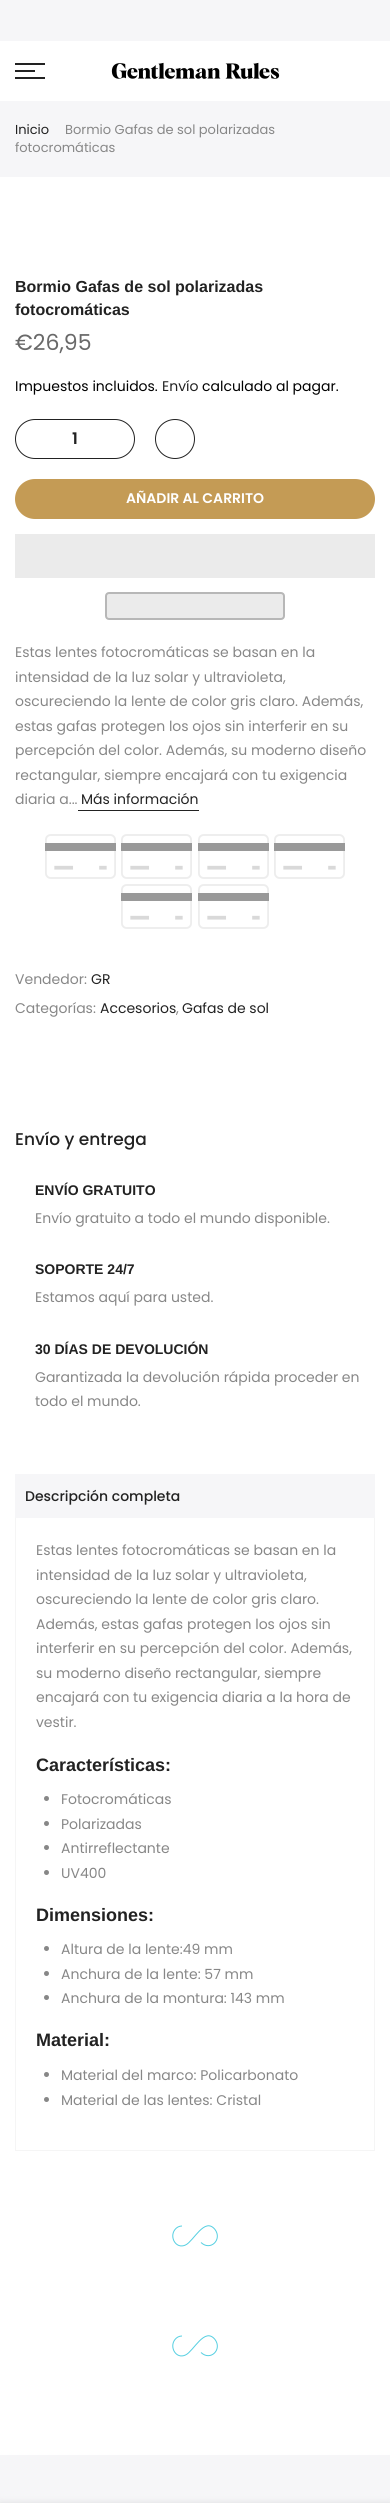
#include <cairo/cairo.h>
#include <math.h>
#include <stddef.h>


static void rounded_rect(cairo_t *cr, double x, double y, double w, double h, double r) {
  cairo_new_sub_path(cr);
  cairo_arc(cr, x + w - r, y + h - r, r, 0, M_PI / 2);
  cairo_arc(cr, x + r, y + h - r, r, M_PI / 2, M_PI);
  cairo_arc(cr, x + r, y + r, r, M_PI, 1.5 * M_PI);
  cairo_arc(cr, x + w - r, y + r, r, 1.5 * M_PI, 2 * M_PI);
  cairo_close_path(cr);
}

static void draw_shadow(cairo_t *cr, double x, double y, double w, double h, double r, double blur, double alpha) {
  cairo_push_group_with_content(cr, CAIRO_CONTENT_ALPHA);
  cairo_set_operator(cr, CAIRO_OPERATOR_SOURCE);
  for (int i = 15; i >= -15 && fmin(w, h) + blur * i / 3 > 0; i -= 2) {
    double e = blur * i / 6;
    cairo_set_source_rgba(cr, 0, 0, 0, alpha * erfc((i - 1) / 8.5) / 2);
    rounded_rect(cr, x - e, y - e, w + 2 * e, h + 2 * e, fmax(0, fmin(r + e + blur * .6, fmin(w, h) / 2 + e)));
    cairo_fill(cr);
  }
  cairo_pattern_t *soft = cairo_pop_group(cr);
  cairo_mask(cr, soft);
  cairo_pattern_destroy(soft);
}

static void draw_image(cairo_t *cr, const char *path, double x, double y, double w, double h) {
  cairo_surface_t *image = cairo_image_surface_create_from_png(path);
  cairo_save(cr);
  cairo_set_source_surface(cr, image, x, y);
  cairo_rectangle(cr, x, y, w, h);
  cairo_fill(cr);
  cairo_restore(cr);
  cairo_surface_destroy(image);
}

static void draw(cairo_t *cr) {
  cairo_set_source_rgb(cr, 1, 1, 1);
  cairo_paint(cr);
  cairo_set_source_rgb(cr, 246 / 255.0, 246 / 255.0, 248 / 255.0);
  cairo_rectangle(cr, 0, 0, 390, 41);
  cairo_fill(cr);
  cairo_set_source_rgb(cr, 34 / 255.0, 34 / 255.0, 34 / 255.0);
  cairo_rectangle(cr, 15, 63, 30, 2);
  cairo_fill(cr);
  cairo_rectangle(cr, 15, 70, 20, 2);
  cairo_fill(cr);
  cairo_rectangle(cr, 15, 77, 30, 2);
  cairo_fill(cr);
  draw_image(cr, "images/1.png", 111, 62, 169, 17);
  cairo_set_source_rgb(cr, 246 / 255.0, 246 / 255.0, 248 / 255.0);
  cairo_rectangle(cr, 0, 101, 390, 76);
  cairo_fill(cr);
  rounded_rect(cr, 15.5, 419.5, 119, 39, 19.5);
  cairo_set_source_rgb(cr, 34 / 255.0, 34 / 255.0, 34 / 255.0);
  cairo_set_line_width(cr, 1);
  cairo_stroke(cr);
  cairo_arc(cr, 175, 439, 19.5, 0, 2 * M_PI);
  cairo_stroke(cr);
  cairo_set_source_rgb(cr, 196 / 255.0, 155 / 255.0, 85 / 255.0);
  rounded_rect(cr, 15, 479, 360, 40, 20);
  cairo_fill(cr);
  cairo_set_source_rgb(cr, 235 / 255.0, 235 / 255.0, 235 / 255.0);
  cairo_rectangle(cr, 15, 534, 360, 44);
  cairo_fill(cr);
  rounded_rect(cr, 106, 593, 178, 26, 3);
  cairo_fill_preserve(cr);
  cairo_set_source_rgb(cr, 183 / 255.0, 183 / 255.0, 183 / 255.0);
  cairo_set_line_width(cr, 2);
  cairo_stroke(cr);
  cairo_set_source_rgb(cr, 34 / 255.0, 34 / 255.0, 34 / 255.0);
  cairo_rectangle(cr, 78, 810, 121, 1);
  cairo_fill(cr);
  draw_image(cr, "images/2.png", 45, 834, 71, 45);
  draw_image(cr, "images/2.png", 121, 834, 71, 45);
  draw_image(cr, "images/2.png", 198, 834, 71, 45);
  draw_image(cr, "images/2.png", 274, 834, 71, 45);
  draw_image(cr, "images/2.png", 121, 884, 71, 45);
  draw_image(cr, "images/2.png", 198, 884, 71, 45);
  cairo_set_source_rgb(cr, 246 / 255.0, 246 / 255.0, 248 / 255.0);
  cairo_rectangle(cr, 15, 1474, 360, 44);
  cairo_fill(cr);
  cairo_set_source_rgb(cr, 245 / 255.0, 245 / 255.0, 245 / 255.0);
  cairo_rectangle(cr, 374, 1518, 1, 633);
  cairo_fill(cr);
  cairo_rectangle(cr, 15, 2150, 360, 1);
  cairo_fill(cr);
  cairo_rectangle(cr, 15, 1518, 1, 633);
  cairo_fill(cr);
  cairo_set_source_rgb(cr, 135 / 255.0, 135 / 255.0, 135 / 255.0);
  cairo_arc(cr, 46.5, 1798.5, 2.5, 0, 2 * M_PI);
  cairo_fill(cr);
  cairo_arc(cr, 46.5, 1823.5, 2.5, 0, 2 * M_PI);
  cairo_fill(cr);
  cairo_arc(cr, 46.5, 1847.5, 2.5, 0, 2 * M_PI);
  cairo_fill(cr);
  cairo_arc(cr, 46.5, 1872.5, 2.5, 0, 2 * M_PI);
  cairo_fill(cr);
  cairo_arc(cr, 46.5, 1948.5, 2.5, 0, 2 * M_PI);
  cairo_fill(cr);
  cairo_arc(cr, 46.5, 1973.5, 2.5, 0, 2 * M_PI);
  cairo_fill(cr);
  cairo_arc(cr, 46.5, 1997.5, 2.5, 0, 2 * M_PI);
  cairo_fill(cr);
  cairo_arc(cr, 46.5, 2074.5, 2.5, 0, 2 * M_PI);
  cairo_fill(cr);
  cairo_arc(cr, 46.5, 2099.5, 2.5, 0, 2 * M_PI);
  cairo_fill(cr);
  cairo_new_path(cr);
  cairo_move_to(cr, 182, 2226);
  cairo_curve_to(cr, 179, 2226, 176.5, 2227.5, 175, 2229.5);
  cairo_curve_to(cr, 169, 2237, 176, 2249.5, 185.5, 2245);
  cairo_curve_to(cr, 193.5, 2241.5, 204.5, 2216.5, 215, 2229.5);
  cairo_curve_to(cr, 222.5, 2239.5, 210.5, 2251.5, 201, 2242.5);
  cairo_set_source_rgb(cr, 86 / 255.0, 207 / 255.0, 225 / 255.0);
  cairo_set_line_width(cr, 1);
  cairo_stroke(cr);
  cairo_new_path(cr);
  cairo_move_to(cr, 182, 2336);
  cairo_curve_to(cr, 179, 2336, 176.5, 2337.5, 175, 2339.5);
  cairo_curve_to(cr, 169, 2347, 176, 2359.5, 185.5, 2355);
  cairo_curve_to(cr, 193.5, 2351.5, 204.5, 2326.5, 215, 2339.5);
  cairo_curve_to(cr, 222.5, 2349.5, 210.5, 2361.5, 201, 2352.5);
  cairo_stroke(cr);
  cairo_set_source_rgb(cr, 246 / 255.0, 246 / 255.0, 248 / 255.0);
  cairo_rectangle(cr, 0, 2455, 390, 48);
  cairo_fill(cr);
  cairo_set_source_rgb(cr, 0, 0, 0);
  draw_shadow(cr, 0, 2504, 390, 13, 0, 4.5, 0.12);
  cairo_select_font_face(cr, "Poppins", CAIRO_FONT_SLANT_NORMAL, CAIRO_FONT_WEIGHT_NORMAL);
  cairo_set_font_size(cr, 13);
  cairo_set_source_rgb(cr, 34 / 255.0, 34 / 255.0, 34 / 255.0);
  cairo_move_to(cr, 15, 134);
  cairo_show_text(cr, "Inicio");
  cairo_set_source_rgb(cr, 135 / 255.0, 135 / 255.0, 135 / 255.0);
  cairo_move_to(cr, 65, 134);
  cairo_show_text(cr, "Bormio Gafas de sol polarizadas");
  cairo_move_to(cr, 15, 152);
  cairo_show_text(cr, "fotocromáticas");
  cairo_select_font_face(cr, "Liberation Sans", CAIRO_FONT_SLANT_NORMAL, CAIRO_FONT_WEIGHT_BOLD);
  cairo_set_font_size(cr, 16);
  cairo_set_source_rgb(cr, 34 / 255.0, 34 / 255.0, 34 / 255.0);
  cairo_move_to(cr, 15, 292);
  cairo_show_text(cr, "Bormio Gafas de sol polarizadas");
  cairo_move_to(cr, 15, 315);
  cairo_show_text(cr, "fotocromáticas");
  cairo_select_font_face(cr, "Poppins", CAIRO_FONT_SLANT_NORMAL, CAIRO_FONT_WEIGHT_NORMAL);
  cairo_set_font_size(cr, 22);
  cairo_set_source_rgb(cr, 105 / 255.0, 105 / 255.0, 105 / 255.0);
  cairo_move_to(cr, 15, 350);
  cairo_show_text(cr, "€26,95");
  cairo_set_font_size(cr, 14);
  cairo_set_source_rgb(cr, 0, 0, 0);
  cairo_move_to(cr, 15, 391);
  cairo_show_text(cr, "Impuestos incluidos.");
  cairo_set_source_rgb(cr, 34 / 255.0, 34 / 255.0, 34 / 255.0);
  cairo_move_to(cr, 162, 391);
  cairo_show_text(cr, "Envío");
  cairo_set_source_rgb(cr, 0, 0, 0);
  cairo_move_to(cr, 202, 391);
  cairo_show_text(cr, "calculado al pagar.");
  cairo_select_font_face(cr, "Poppins SemiBold", CAIRO_FONT_SLANT_NORMAL, CAIRO_FONT_WEIGHT_NORMAL);
  cairo_set_font_size(cr, 16);
  cairo_set_source_rgb(cr, 34 / 255.0, 34 / 255.0, 34 / 255.0);
  cairo_move_to(cr, 72, 444);
  cairo_show_text(cr, "1");
  cairo_set_font_size(cr, 14);
  cairo_set_source_rgb(cr, 1, 1, 1);
  cairo_move_to(cr, 126, 503);
  cairo_show_text(cr, "AÑADIR AL CARRITO");
  cairo_select_font_face(cr, "Poppins", CAIRO_FONT_SLANT_NORMAL, CAIRO_FONT_WEIGHT_NORMAL);
  cairo_set_source_rgb(cr, 135 / 255.0, 135 / 255.0, 135 / 255.0);
  cairo_move_to(cr, 15, 657);
  cairo_show_text(cr, "Estas lentes fotocromáticas se basan en la");
  cairo_move_to(cr, 15, 682);
  cairo_show_text(cr, "intensidad de la luz solar y ultravioleta,");
  cairo_move_to(cr, 15, 706);
  cairo_show_text(cr, "oscureciendo la lente de color gris claro. Además,");
  cairo_move_to(cr, 15, 731);
  cairo_show_text(cr, "estas gafas protegen los ojos sin interferir en su");
  cairo_move_to(cr, 15, 755);
  cairo_show_text(cr, "percepción del color. Además, su moderno diseño");
  cairo_move_to(cr, 15, 780);
  cairo_show_text(cr, "rectangular, siempre encajará con tu exigencia");
  cairo_move_to(cr, 15, 804);
  cairo_show_text(cr, "diaria a...");
  cairo_set_source_rgb(cr, 34 / 255.0, 34 / 255.0, 34 / 255.0);
  cairo_move_to(cr, 81, 804);
  cairo_show_text(cr, "Más información");
  cairo_set_source_rgb(cr, 135 / 255.0, 135 / 255.0, 135 / 255.0);
  cairo_move_to(cr, 15, 984);
  cairo_show_text(cr, "Vendedor:");
  cairo_set_source_rgb(cr, 34 / 255.0, 34 / 255.0, 34 / 255.0);
  cairo_move_to(cr, 91, 984);
  cairo_show_text(cr, "GR");
  cairo_set_source_rgb(cr, 135 / 255.0, 135 / 255.0, 135 / 255.0);
  cairo_move_to(cr, 15, 1013);
  cairo_show_text(cr, "Categorías:");
  cairo_set_source_rgb(cr, 34 / 255.0, 34 / 255.0, 34 / 255.0);
  cairo_move_to(cr, 100, 1013);
  cairo_show_text(cr, "Accesorios");
  cairo_set_source_rgb(cr, 135 / 255.0, 135 / 255.0, 135 / 255.0);
  cairo_move_to(cr, 176, 1013);
  cairo_show_text(cr, ",");
  cairo_set_source_rgb(cr, 34 / 255.0, 34 / 255.0, 34 / 255.0);
  cairo_move_to(cr, 182, 1013);
  cairo_show_text(cr, "Gafas de sol");
  cairo_select_font_face(cr, "Poppins Medium", CAIRO_FONT_SLANT_NORMAL, CAIRO_FONT_WEIGHT_NORMAL);
  cairo_set_font_size(cr, 17);
  cairo_move_to(cr, 15, 1145);
  cairo_show_text(cr, "Envío y entrega");
  cairo_select_font_face(cr, "Liberation Sans", CAIRO_FONT_SLANT_NORMAL, CAIRO_FONT_WEIGHT_BOLD);
  cairo_set_font_size(cr, 14);
  cairo_move_to(cr, 35, 1195);
  cairo_show_text(cr, "ENVÍO GRATUITO");
  cairo_select_font_face(cr, "Poppins", CAIRO_FONT_SLANT_NORMAL, CAIRO_FONT_WEIGHT_NORMAL);
  cairo_set_source_rgb(cr, 135 / 255.0, 135 / 255.0, 135 / 255.0);
  cairo_move_to(cr, 35, 1223);
  cairo_show_text(cr, "Envío gratuito a todo el mundo disponible.");
  cairo_select_font_face(cr, "Liberation Sans", CAIRO_FONT_SLANT_NORMAL, CAIRO_FONT_WEIGHT_BOLD);
  cairo_set_source_rgb(cr, 34 / 255.0, 34 / 255.0, 34 / 255.0);
  cairo_move_to(cr, 35, 1274);
  cairo_show_text(cr, "SOPORTE 24/7");
  cairo_select_font_face(cr, "Poppins", CAIRO_FONT_SLANT_NORMAL, CAIRO_FONT_WEIGHT_NORMAL);
  cairo_set_source_rgb(cr, 135 / 255.0, 135 / 255.0, 135 / 255.0);
  cairo_move_to(cr, 35, 1302);
  cairo_show_text(cr, "Estamos aquí para usted.");
  cairo_select_font_face(cr, "Liberation Sans", CAIRO_FONT_SLANT_NORMAL, CAIRO_FONT_WEIGHT_BOLD);
  cairo_set_source_rgb(cr, 34 / 255.0, 34 / 255.0, 34 / 255.0);
  cairo_move_to(cr, 35, 1354);
  cairo_show_text(cr, "30 DÍAS DE DEVOLUCIÓN");
  cairo_select_font_face(cr, "Poppins", CAIRO_FONT_SLANT_NORMAL, CAIRO_FONT_WEIGHT_NORMAL);
  cairo_set_source_rgb(cr, 135 / 255.0, 135 / 255.0, 135 / 255.0);
  cairo_move_to(cr, 35, 1382);
  cairo_show_text(cr, "Garantizada la devolución rápida proceder en");
  cairo_move_to(cr, 35, 1406);
  cairo_show_text(cr, "todo el mundo.");
  cairo_select_font_face(cr, "Poppins Medium", CAIRO_FONT_SLANT_NORMAL, CAIRO_FONT_WEIGHT_NORMAL);
  cairo_set_source_rgb(cr, 34 / 255.0, 34 / 255.0, 34 / 255.0);
  cairo_move_to(cr, 25, 1501);
  cairo_show_text(cr, "Descripción completa");
  cairo_select_font_face(cr, "Poppins", CAIRO_FONT_SLANT_NORMAL, CAIRO_FONT_WEIGHT_NORMAL);
  cairo_set_source_rgb(cr, 135 / 255.0, 135 / 255.0, 135 / 255.0);
  cairo_move_to(cr, 36, 1555);
  cairo_show_text(cr, "Estas lentes fotocromáticas se basan en la");
  cairo_move_to(cr, 36, 1580);
  cairo_show_text(cr, "intensidad de la luz solar y ultravioleta,");
  cairo_move_to(cr, 36, 1604);
  cairo_show_text(cr, "oscureciendo la lente de color gris claro.");
  cairo_move_to(cr, 36, 1629);
  cairo_show_text(cr, "Además, estas gafas protegen los ojos sin");
  cairo_move_to(cr, 36, 1653);
  cairo_show_text(cr, "interferir en su percepción del color. Además,");
  cairo_move_to(cr, 36, 1678);
  cairo_show_text(cr, "su moderno diseño rectangular, siempre");
  cairo_move_to(cr, 36, 1702);
  cairo_show_text(cr, "encajará con tu exigencia diaria a la hora de");
  cairo_move_to(cr, 36, 1727);
  cairo_show_text(cr, "vestir.");
  cairo_select_font_face(cr, "Liberation Sans", CAIRO_FONT_SLANT_NORMAL, CAIRO_FONT_WEIGHT_BOLD);
  cairo_set_font_size(cr, 18);
  cairo_set_source_rgb(cr, 34 / 255.0, 34 / 255.0, 34 / 255.0);
  cairo_move_to(cr, 36, 1771);
  cairo_show_text(cr, "Características:");
  cairo_select_font_face(cr, "Poppins", CAIRO_FONT_SLANT_NORMAL, CAIRO_FONT_WEIGHT_NORMAL);
  cairo_set_font_size(cr, 14);
  cairo_set_source_rgb(cr, 135 / 255.0, 135 / 255.0, 135 / 255.0);
  cairo_move_to(cr, 61, 1804);
  cairo_show_text(cr, "Fotocromáticas");
  cairo_move_to(cr, 61, 1829);
  cairo_show_text(cr, "Polarizadas");
  cairo_move_to(cr, 61, 1853);
  cairo_show_text(cr, "Antirreflectante");
  cairo_move_to(cr, 61, 1878);
  cairo_show_text(cr, "UV400");
  cairo_select_font_face(cr, "Liberation Sans", CAIRO_FONT_SLANT_NORMAL, CAIRO_FONT_WEIGHT_BOLD);
  cairo_set_font_size(cr, 18);
  cairo_set_source_rgb(cr, 34 / 255.0, 34 / 255.0, 34 / 255.0);
  cairo_move_to(cr, 36, 1921);
  cairo_show_text(cr, "Dimensiones:");
  cairo_select_font_face(cr, "Poppins", CAIRO_FONT_SLANT_NORMAL, CAIRO_FONT_WEIGHT_NORMAL);
  cairo_set_font_size(cr, 14);
  cairo_set_source_rgb(cr, 135 / 255.0, 135 / 255.0, 135 / 255.0);
  cairo_move_to(cr, 61, 1954);
  cairo_show_text(cr, "Altura de la lente:49 mm");
  cairo_move_to(cr, 61, 1979);
  cairo_show_text(cr, "Anchura de la lente: 57 mm");
  cairo_move_to(cr, 61, 2003);
  cairo_show_text(cr, "Anchura de la montura: 143 mm");
  cairo_select_font_face(cr, "Liberation Sans", CAIRO_FONT_SLANT_NORMAL, CAIRO_FONT_WEIGHT_BOLD);
  cairo_set_font_size(cr, 18);
  cairo_set_source_rgb(cr, 34 / 255.0, 34 / 255.0, 34 / 255.0);
  cairo_move_to(cr, 36, 2046);
  cairo_show_text(cr, "Material:");
  cairo_select_font_face(cr, "Poppins", CAIRO_FONT_SLANT_NORMAL, CAIRO_FONT_WEIGHT_NORMAL);
  cairo_set_font_size(cr, 14);
  cairo_set_source_rgb(cr, 135 / 255.0, 135 / 255.0, 135 / 255.0);
  cairo_move_to(cr, 61, 2080);
  cairo_show_text(cr, "Material del marco: Policarbonato");
  cairo_move_to(cr, 61, 2105);
  cairo_show_text(cr, "Material de las lentes: Cristal");
}

int main(void) {
  cairo_surface_t *surface = cairo_image_surface_create(CAIRO_FORMAT_RGB24, 390, 2503);
  cairo_t *cr = cairo_create(surface);
  cairo_font_options_t *options = cairo_font_options_create();
  cairo_font_options_set_hint_metrics(options, CAIRO_HINT_METRICS_OFF);
  cairo_font_options_set_hint_style(options, CAIRO_HINT_STYLE_NONE);
  cairo_set_font_options(cr, options);
  cairo_set_miter_limit(cr, 4);
  draw(cr);
  cairo_surface_write_to_png(surface, "out.png");
  cairo_font_options_destroy(options);
  cairo_destroy(cr);
  cairo_surface_destroy(surface);
  return 0;
}
